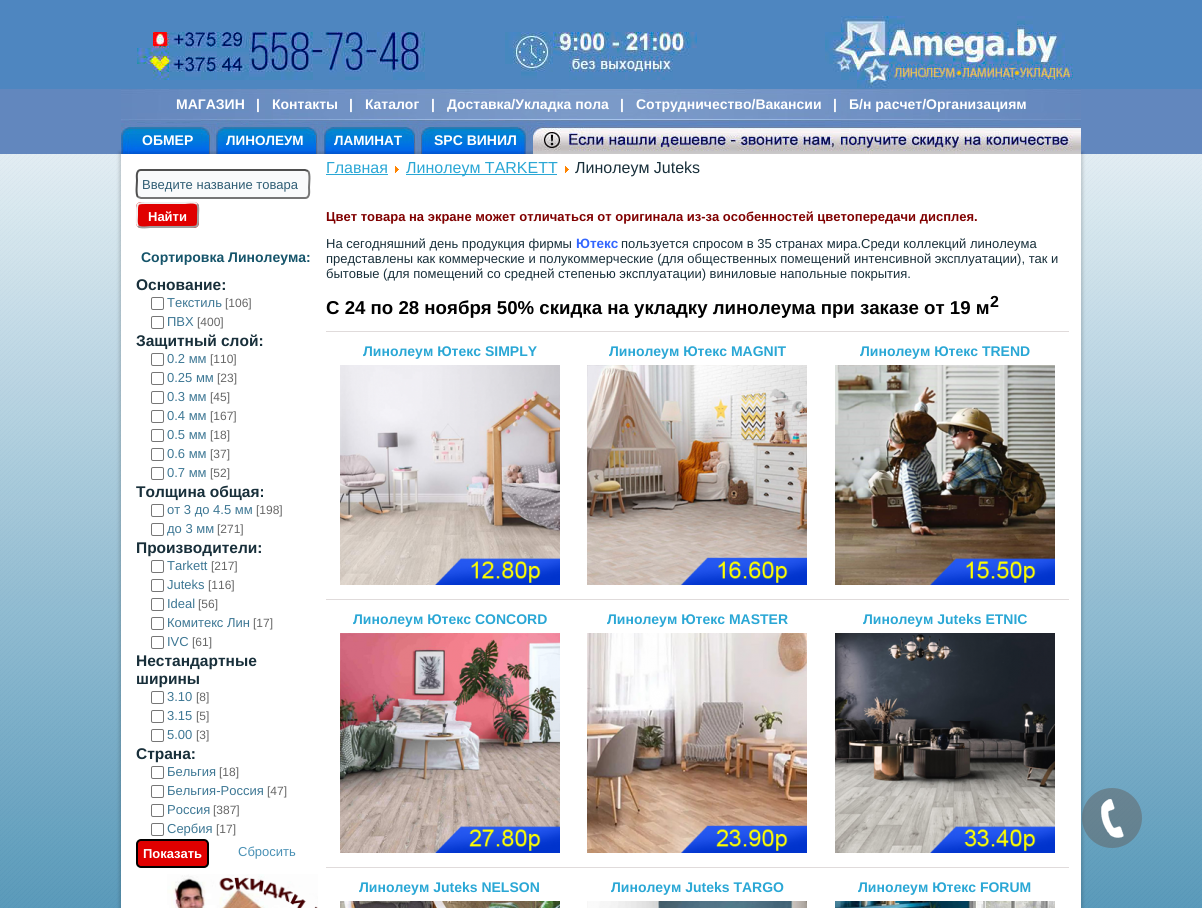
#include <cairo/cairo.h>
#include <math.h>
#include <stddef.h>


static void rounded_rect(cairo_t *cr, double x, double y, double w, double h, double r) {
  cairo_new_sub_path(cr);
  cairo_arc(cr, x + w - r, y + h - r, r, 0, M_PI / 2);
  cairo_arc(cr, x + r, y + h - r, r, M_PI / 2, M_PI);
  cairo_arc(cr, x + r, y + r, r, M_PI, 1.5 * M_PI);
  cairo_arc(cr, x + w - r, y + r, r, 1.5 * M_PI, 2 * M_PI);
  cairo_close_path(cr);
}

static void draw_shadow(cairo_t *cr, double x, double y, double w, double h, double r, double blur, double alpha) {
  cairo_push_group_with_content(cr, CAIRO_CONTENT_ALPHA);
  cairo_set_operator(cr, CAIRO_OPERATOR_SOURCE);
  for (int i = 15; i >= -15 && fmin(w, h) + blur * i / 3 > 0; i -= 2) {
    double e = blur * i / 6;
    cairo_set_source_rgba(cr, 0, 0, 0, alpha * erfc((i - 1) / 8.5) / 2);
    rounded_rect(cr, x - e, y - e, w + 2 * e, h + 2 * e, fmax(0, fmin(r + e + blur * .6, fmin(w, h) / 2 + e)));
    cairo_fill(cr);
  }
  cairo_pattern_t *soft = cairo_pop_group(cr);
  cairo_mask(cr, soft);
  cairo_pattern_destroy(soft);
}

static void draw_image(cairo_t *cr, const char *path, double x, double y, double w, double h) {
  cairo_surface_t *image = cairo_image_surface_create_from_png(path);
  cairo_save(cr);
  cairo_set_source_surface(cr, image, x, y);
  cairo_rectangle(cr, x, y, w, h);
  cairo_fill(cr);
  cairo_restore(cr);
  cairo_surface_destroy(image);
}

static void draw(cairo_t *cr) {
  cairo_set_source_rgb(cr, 1, 1, 1);
  cairo_paint(cr);
  draw_image(cr, "images/1.png", 0, 154, 1202, 754);
  draw_image(cr, "images/2.png", 0, 0, 1202, 89);
  cairo_set_source_rgb(cr, 98 / 255.0, 135 / 255.0, 190 / 255.0);
  cairo_rectangle(cr, 0, 89, 1202, 65);
  cairo_fill(cr);
  draw_image(cr, "images/3.png", 121, 89, 960, 65);
  cairo_set_source_rgb(cr, 0, 0, 0);
  draw_shadow(cr, 119, 152, 964, 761, 0, 1.5, 0.15);
  cairo_set_source_rgb(cr, 1, 1, 1);
  cairo_rectangle(cr, 121, 154, 960, 754);
  cairo_fill(cr);
  cairo_set_source_rgb(cr, 249 / 255.0, 250 / 255.0, 251 / 255.0);
  rounded_rect(cr, 136, 169, 174, 30, 5);
  cairo_fill(cr);
  cairo_new_path(cr);
  cairo_move_to(cr, 308, 171);
  cairo_curve_to(cr, 310.5, 173.5, 309, 184, 309, 187.5);
  cairo_curve_to(cr, 309, 190.5, 310.5, 198, 305, 198);
  cairo_line_to(cr, 141, 198);
  cairo_line_to(cr, 138, 197);
  cairo_set_source_rgb(cr, 118 / 255.0, 118 / 255.0, 118 / 255.0);
  cairo_stroke(cr);
  cairo_new_path(cr);
  cairo_move_to(cr, 138, 197);
  cairo_curve_to(cr, 135.5, 194.5, 137, 184, 137, 180.5);
  cairo_curve_to(cr, 137, 177.5, 135.5, 170, 141, 170);
  cairo_line_to(cr, 305, 170);
  cairo_line_to(cr, 308, 171);
  cairo_set_source_rgb(cr, 79 / 255.0, 79 / 255.0, 79 / 255.0);
  cairo_stroke(cr);
  cairo_set_source_rgb(cr, 224 / 255.0, 0, 0);
  rounded_rect(cr, 136, 202, 63, 26, 5);
  cairo_fill(cr);
  cairo_new_path(cr);
  cairo_move_to(cr, 197, 204);
  cairo_curve_to(cr, 199, 206.5, 198, 212, 198, 215);
  cairo_curve_to(cr, 198, 228, 199, 227, 185, 227);
  cairo_line_to(cr, 150, 227);
  cairo_curve_to(cr, 148.5, 227, 140.5, 228.5, 138, 226);
  cairo_set_source_rgb(cr, 159 / 255.0, 159 / 255.0, 159 / 255.0);
  cairo_stroke(cr);
  cairo_new_path(cr);
  cairo_move_to(cr, 138, 226);
  cairo_curve_to(cr, 136, 223.5, 137, 218, 137, 215);
  cairo_curve_to(cr, 137, 202, 136, 203, 150, 203);
  cairo_line_to(cr, 185, 203);
  cairo_curve_to(cr, 186.5, 203, 194.5, 201.5, 197, 204);
  cairo_set_source_rgb(cr, 239 / 255.0, 239 / 255.0, 239 / 255.0);
  cairo_stroke(cr);
  rounded_rect(cr, 151.5, 297.5, 12, 12, 1.5);
  cairo_set_source_rgb(cr, 118 / 255.0, 118 / 255.0, 118 / 255.0);
  cairo_set_line_width(cr, 1);
  cairo_stroke(cr);
  rounded_rect(cr, 151.5, 316.5, 12, 12, 1.5);
  cairo_stroke(cr);
  rounded_rect(cr, 151.5, 353.5, 12, 12, 1.5);
  cairo_stroke(cr);
  rounded_rect(cr, 151.5, 372.5, 12, 12, 1.5);
  cairo_stroke(cr);
  rounded_rect(cr, 151.5, 391.5, 12, 12, 1.5);
  cairo_stroke(cr);
  rounded_rect(cr, 151.5, 410.5, 12, 12, 1.5);
  cairo_stroke(cr);
  rounded_rect(cr, 151.5, 429.5, 12, 12, 1.5);
  cairo_stroke(cr);
  rounded_rect(cr, 151.5, 448.5, 12, 12, 1.5);
  cairo_stroke(cr);
  rounded_rect(cr, 151.5, 467.5, 12, 12, 1.5);
  cairo_stroke(cr);
  rounded_rect(cr, 151.5, 504.5, 12, 12, 1.5);
  cairo_stroke(cr);
  rounded_rect(cr, 151.5, 523.5, 12, 12, 1.5);
  cairo_stroke(cr);
  rounded_rect(cr, 151.5, 560.5, 12, 12, 1.5);
  cairo_stroke(cr);
  rounded_rect(cr, 151.5, 579.5, 12, 12, 1.5);
  cairo_stroke(cr);
  rounded_rect(cr, 151.5, 598.5, 12, 12, 1.5);
  cairo_stroke(cr);
  rounded_rect(cr, 151.5, 617.5, 12, 12, 1.5);
  cairo_stroke(cr);
  rounded_rect(cr, 151.5, 636.5, 12, 12, 1.5);
  cairo_stroke(cr);
  rounded_rect(cr, 151.5, 691.5, 12, 12, 1.5);
  cairo_stroke(cr);
  rounded_rect(cr, 151.5, 710.5, 12, 12, 1.5);
  cairo_stroke(cr);
  rounded_rect(cr, 151.5, 729.5, 12, 12, 1.5);
  cairo_stroke(cr);
  rounded_rect(cr, 151.5, 766.5, 12, 12, 1.5);
  cairo_stroke(cr);
  rounded_rect(cr, 151.5, 785.5, 12, 12, 1.5);
  cairo_stroke(cr);
  rounded_rect(cr, 151.5, 804.5, 12, 12, 1.5);
  cairo_stroke(cr);
  rounded_rect(cr, 151.5, 823.5, 12, 12, 1.5);
  cairo_stroke(cr);
  cairo_set_source_rgb(cr, 224 / 255.0, 0, 0);
  rounded_rect(cr, 137, 840, 71, 27, 4);
  cairo_fill_preserve(cr);
  cairo_set_source_rgb(cr, 0, 0, 0);
  cairo_set_line_width(cr, 2);
  cairo_stroke(cr);
  draw_image(cr, "images/4.png", 167, 874, 151, 34);
  cairo_set_source_rgb(cr, 42 / 255.0, 167 / 255.0, 213 / 255.0);
  cairo_rectangle(cr, 326, 174, 62, 1);
  cairo_fill(cr);
  draw_image(cr, "images/5.png", 395, 166, 4, 7);
  cairo_rectangle(cr, 406, 174, 151, 1);
  cairo_fill(cr);
  draw_image(cr, "images/5.png", 565, 166, 4, 7);
  cairo_set_source_rgb(cr, 224 / 255.0, 219 / 255.0, 219 / 255.0);
  cairo_rectangle(cr, 326, 331, 743, 1);
  cairo_fill(cr);
  draw_image(cr, "images/6.png", 340, 365, 220, 220);
  draw_image(cr, "images/7.png", 587, 365, 220, 220);
  draw_image(cr, "images/8.png", 835, 365, 220, 220);
  cairo_rectangle(cr, 326, 599, 743, 1);
  cairo_fill(cr);
  draw_image(cr, "images/9.png", 340, 633, 220, 220);
  draw_image(cr, "images/10.png", 587, 633, 220, 220);
  draw_image(cr, "images/11.png", 835, 633, 220, 220);
  cairo_rectangle(cr, 326, 867, 743, 1);
  cairo_fill(cr);
  draw_image(cr, "images/12.png", 340, 901, 220, 7);
  draw_image(cr, "images/13.png", 587, 901, 220, 7);
  draw_image(cr, "images/14.png", 835, 901, 220, 7);
  cairo_set_source_rgba(cr, 99 / 255.0, 99 / 255.0, 99 / 255.0, 0.5);
  cairo_arc(cr, 1112, 818, 30, 0, 2 * M_PI);
  cairo_fill(cr);
  draw_image(cr, "images/15.png", 1101, 799, 23, 39);
  cairo_select_font_face(cr, "Liberation Sans", CAIRO_FONT_SLANT_NORMAL, CAIRO_FONT_WEIGHT_BOLD);
  cairo_set_font_size(cr, 14);
  cairo_set_source_rgb(cr, 1, 1, 1);
  cairo_move_to(cr, 176, 109);
  cairo_show_text(cr, "МАГАЗИН");
  cairo_move_to(cr, 256, 109);
  cairo_show_text(cr, "|");
  cairo_move_to(cr, 272, 109);
  cairo_show_text(cr, "Контакты");
  cairo_move_to(cr, 349, 109);
  cairo_show_text(cr, "|");
  cairo_move_to(cr, 365, 109);
  cairo_show_text(cr, "Каталог");
  cairo_move_to(cr, 431, 109);
  cairo_show_text(cr, "|");
  cairo_move_to(cr, 447, 109);
  cairo_show_text(cr, "Доставка/Укладка пола");
  cairo_move_to(cr, 620, 109);
  cairo_show_text(cr, "|");
  cairo_move_to(cr, 636, 109);
  cairo_show_text(cr, "Сотрудничество/Вакансии");
  cairo_move_to(cr, 833, 109);
  cairo_show_text(cr, "|");
  cairo_move_to(cr, 849, 109);
  cairo_show_text(cr, "Б/н расчет/Организациям");
  cairo_move_to(cr, 142, 145);
  cairo_show_text(cr, "ОБМЕР");
  cairo_set_font_size(cr, 13.5);
  cairo_move_to(cr, 226, 145);
  cairo_show_text(cr, "ЛИНОЛЕУМ");
  cairo_move_to(cr, 334, 145);
  cairo_show_text(cr, "ЛАМИНАТ");
  cairo_set_font_size(cr, 14);
  cairo_move_to(cr, 434, 145);
  cairo_show_text(cr, "SPC ВИНИЛ");
  cairo_select_font_face(cr, "Liberation Sans", CAIRO_FONT_SLANT_NORMAL, CAIRO_FONT_WEIGHT_NORMAL);
  cairo_set_font_size(cr, 13);
  cairo_set_source_rgb(cr, 47 / 255.0, 93 / 255.0, 116 / 255.0);
  cairo_move_to(cr, 142, 189);
  cairo_show_text(cr, "Введите название товара");
  cairo_select_font_face(cr, "Liberation Sans", CAIRO_FONT_SLANT_NORMAL, CAIRO_FONT_WEIGHT_BOLD);
  cairo_set_source_rgb(cr, 1, 1, 1);
  cairo_move_to(cr, 148, 221);
  cairo_show_text(cr, "Найти");
  cairo_set_font_size(cr, 14);
  cairo_set_source_rgb(cr, 21 / 255.0, 84 / 255.0, 106 / 255.0);
  cairo_move_to(cr, 141, 262);
  cairo_show_text(cr, "Сортировка Линолеума:");
  cairo_set_font_size(cr, 15.5);
  cairo_set_source_rgb(cr, 24 / 255.0, 47 / 255.0, 58 / 255.0);
  cairo_move_to(cr, 136, 290);
  cairo_show_text(cr, "Основание:");
  cairo_select_font_face(cr, "Liberation Sans", CAIRO_FONT_SLANT_NORMAL, CAIRO_FONT_WEIGHT_NORMAL);
  cairo_set_font_size(cr, 13);
  cairo_set_source_rgb(cr, 61 / 255.0, 119 / 255.0, 148 / 255.0);
  cairo_move_to(cr, 167, 307);
  cairo_show_text(cr, "Текстиль");
  cairo_set_font_size(cr, 12);
  cairo_set_source_rgb(cr, 102 / 255.0, 102 / 255.0, 102 / 255.0);
  cairo_move_to(cr, 225, 307);
  cairo_show_text(cr, "[106]");
  cairo_set_font_size(cr, 13);
  cairo_set_source_rgb(cr, 61 / 255.0, 119 / 255.0, 148 / 255.0);
  cairo_move_to(cr, 167, 326);
  cairo_show_text(cr, "ПВХ");
  cairo_set_font_size(cr, 12);
  cairo_set_source_rgb(cr, 102 / 255.0, 102 / 255.0, 102 / 255.0);
  cairo_move_to(cr, 197, 326);
  cairo_show_text(cr, "[400]");
  cairo_select_font_face(cr, "Liberation Sans", CAIRO_FONT_SLANT_NORMAL, CAIRO_FONT_WEIGHT_BOLD);
  cairo_set_font_size(cr, 15.5);
  cairo_set_source_rgb(cr, 24 / 255.0, 47 / 255.0, 58 / 255.0);
  cairo_move_to(cr, 136, 346);
  cairo_show_text(cr, "Защитный слой:");
  cairo_select_font_face(cr, "Liberation Sans", CAIRO_FONT_SLANT_NORMAL, CAIRO_FONT_WEIGHT_NORMAL);
  cairo_set_font_size(cr, 13);
  cairo_set_source_rgb(cr, 61 / 255.0, 119 / 255.0, 148 / 255.0);
  cairo_move_to(cr, 167, 363);
  cairo_show_text(cr, "0.2 мм");
  cairo_set_font_size(cr, 12);
  cairo_set_source_rgb(cr, 102 / 255.0, 102 / 255.0, 102 / 255.0);
  cairo_move_to(cr, 210, 363);
  cairo_show_text(cr, "[110]");
  cairo_set_font_size(cr, 13);
  cairo_set_source_rgb(cr, 61 / 255.0, 119 / 255.0, 148 / 255.0);
  cairo_move_to(cr, 167, 382);
  cairo_show_text(cr, "0.25 мм");
  cairo_set_font_size(cr, 12);
  cairo_set_source_rgb(cr, 102 / 255.0, 102 / 255.0, 102 / 255.0);
  cairo_move_to(cr, 217, 382);
  cairo_show_text(cr, "[23]");
  cairo_set_font_size(cr, 13);
  cairo_set_source_rgb(cr, 61 / 255.0, 119 / 255.0, 148 / 255.0);
  cairo_move_to(cr, 167, 401);
  cairo_show_text(cr, "0.3 мм");
  cairo_set_font_size(cr, 12);
  cairo_set_source_rgb(cr, 102 / 255.0, 102 / 255.0, 102 / 255.0);
  cairo_move_to(cr, 210, 401);
  cairo_show_text(cr, "[45]");
  cairo_set_font_size(cr, 13);
  cairo_set_source_rgb(cr, 61 / 255.0, 119 / 255.0, 148 / 255.0);
  cairo_move_to(cr, 167, 420);
  cairo_show_text(cr, "0.4 мм");
  cairo_set_font_size(cr, 12);
  cairo_set_source_rgb(cr, 102 / 255.0, 102 / 255.0, 102 / 255.0);
  cairo_move_to(cr, 210, 420);
  cairo_show_text(cr, "[167]");
  cairo_set_font_size(cr, 13);
  cairo_set_source_rgb(cr, 61 / 255.0, 119 / 255.0, 148 / 255.0);
  cairo_move_to(cr, 167, 439);
  cairo_show_text(cr, "0.5 мм");
  cairo_set_font_size(cr, 12);
  cairo_set_source_rgb(cr, 102 / 255.0, 102 / 255.0, 102 / 255.0);
  cairo_move_to(cr, 210, 439);
  cairo_show_text(cr, "[18]");
  cairo_set_font_size(cr, 13);
  cairo_set_source_rgb(cr, 61 / 255.0, 119 / 255.0, 148 / 255.0);
  cairo_move_to(cr, 167, 458);
  cairo_show_text(cr, "0.6 мм");
  cairo_set_font_size(cr, 12);
  cairo_set_source_rgb(cr, 102 / 255.0, 102 / 255.0, 102 / 255.0);
  cairo_move_to(cr, 210, 458);
  cairo_show_text(cr, "[37]");
  cairo_set_font_size(cr, 13);
  cairo_set_source_rgb(cr, 61 / 255.0, 119 / 255.0, 148 / 255.0);
  cairo_move_to(cr, 167, 477);
  cairo_show_text(cr, "0.7 мм");
  cairo_set_font_size(cr, 12);
  cairo_set_source_rgb(cr, 102 / 255.0, 102 / 255.0, 102 / 255.0);
  cairo_move_to(cr, 210, 477);
  cairo_show_text(cr, "[52]");
  cairo_select_font_face(cr, "Liberation Sans", CAIRO_FONT_SLANT_NORMAL, CAIRO_FONT_WEIGHT_BOLD);
  cairo_set_font_size(cr, 15.5);
  cairo_set_source_rgb(cr, 24 / 255.0, 47 / 255.0, 58 / 255.0);
  cairo_move_to(cr, 136, 497);
  cairo_show_text(cr, "Толщина общая:");
  cairo_select_font_face(cr, "Liberation Sans", CAIRO_FONT_SLANT_NORMAL, CAIRO_FONT_WEIGHT_NORMAL);
  cairo_set_font_size(cr, 13);
  cairo_set_source_rgb(cr, 61 / 255.0, 119 / 255.0, 148 / 255.0);
  cairo_move_to(cr, 167, 514);
  cairo_show_text(cr, "от 3 до 4.5 мм");
  cairo_set_font_size(cr, 12);
  cairo_set_source_rgb(cr, 102 / 255.0, 102 / 255.0, 102 / 255.0);
  cairo_move_to(cr, 256, 514);
  cairo_show_text(cr, "[198]");
  cairo_set_font_size(cr, 13);
  cairo_set_source_rgb(cr, 61 / 255.0, 119 / 255.0, 148 / 255.0);
  cairo_move_to(cr, 167, 533);
  cairo_show_text(cr, "до 3 мм");
  cairo_set_font_size(cr, 12);
  cairo_set_source_rgb(cr, 102 / 255.0, 102 / 255.0, 102 / 255.0);
  cairo_move_to(cr, 217, 533);
  cairo_show_text(cr, "[271]");
  cairo_select_font_face(cr, "Liberation Sans", CAIRO_FONT_SLANT_NORMAL, CAIRO_FONT_WEIGHT_BOLD);
  cairo_set_font_size(cr, 15.5);
  cairo_set_source_rgb(cr, 24 / 255.0, 47 / 255.0, 58 / 255.0);
  cairo_move_to(cr, 136, 553);
  cairo_show_text(cr, "Производители:");
  cairo_select_font_face(cr, "Liberation Sans", CAIRO_FONT_SLANT_NORMAL, CAIRO_FONT_WEIGHT_NORMAL);
  cairo_set_font_size(cr, 13);
  cairo_set_source_rgb(cr, 61 / 255.0, 119 / 255.0, 148 / 255.0);
  cairo_move_to(cr, 167, 570);
  cairo_show_text(cr, "Tarkett");
  cairo_set_font_size(cr, 12);
  cairo_set_source_rgb(cr, 102 / 255.0, 102 / 255.0, 102 / 255.0);
  cairo_move_to(cr, 211, 570);
  cairo_show_text(cr, "[217]");
  cairo_set_font_size(cr, 13);
  cairo_set_source_rgb(cr, 61 / 255.0, 119 / 255.0, 148 / 255.0);
  cairo_move_to(cr, 167, 589);
  cairo_show_text(cr, "Juteks");
  cairo_set_font_size(cr, 12);
  cairo_set_source_rgb(cr, 102 / 255.0, 102 / 255.0, 102 / 255.0);
  cairo_move_to(cr, 208, 589);
  cairo_show_text(cr, "[116]");
  cairo_set_font_size(cr, 13);
  cairo_set_source_rgb(cr, 61 / 255.0, 119 / 255.0, 148 / 255.0);
  cairo_move_to(cr, 167, 608);
  cairo_show_text(cr, "Ideal");
  cairo_set_font_size(cr, 12);
  cairo_set_source_rgb(cr, 102 / 255.0, 102 / 255.0, 102 / 255.0);
  cairo_move_to(cr, 198, 608);
  cairo_show_text(cr, "[56]");
  cairo_set_font_size(cr, 13);
  cairo_set_source_rgb(cr, 61 / 255.0, 119 / 255.0, 148 / 255.0);
  cairo_move_to(cr, 167, 627);
  cairo_show_text(cr, "Комитекс Лин");
  cairo_set_font_size(cr, 12);
  cairo_set_source_rgb(cr, 102 / 255.0, 102 / 255.0, 102 / 255.0);
  cairo_move_to(cr, 253, 627);
  cairo_show_text(cr, "[17]");
  cairo_set_font_size(cr, 13);
  cairo_set_source_rgb(cr, 61 / 255.0, 119 / 255.0, 148 / 255.0);
  cairo_move_to(cr, 167, 646);
  cairo_show_text(cr, "IVC");
  cairo_set_font_size(cr, 12);
  cairo_set_source_rgb(cr, 102 / 255.0, 102 / 255.0, 102 / 255.0);
  cairo_move_to(cr, 192, 646);
  cairo_show_text(cr, "[61]");
  cairo_select_font_face(cr, "Liberation Sans", CAIRO_FONT_SLANT_NORMAL, CAIRO_FONT_WEIGHT_BOLD);
  cairo_set_font_size(cr, 15.5);
  cairo_set_source_rgb(cr, 24 / 255.0, 47 / 255.0, 58 / 255.0);
  cairo_move_to(cr, 136, 666);
  cairo_show_text(cr, "Нестандартные");
  cairo_move_to(cr, 136, 684);
  cairo_show_text(cr, "ширины");
  cairo_select_font_face(cr, "Liberation Sans", CAIRO_FONT_SLANT_NORMAL, CAIRO_FONT_WEIGHT_NORMAL);
  cairo_set_font_size(cr, 13);
  cairo_set_source_rgb(cr, 61 / 255.0, 119 / 255.0, 148 / 255.0);
  cairo_move_to(cr, 167, 701);
  cairo_show_text(cr, "3.10");
  cairo_set_font_size(cr, 12);
  cairo_set_source_rgb(cr, 102 / 255.0, 102 / 255.0, 102 / 255.0);
  cairo_move_to(cr, 196, 701);
  cairo_show_text(cr, "[8]");
  cairo_set_font_size(cr, 13);
  cairo_set_source_rgb(cr, 61 / 255.0, 119 / 255.0, 148 / 255.0);
  cairo_move_to(cr, 167, 720);
  cairo_show_text(cr, "3.15");
  cairo_set_font_size(cr, 12);
  cairo_set_source_rgb(cr, 102 / 255.0, 102 / 255.0, 102 / 255.0);
  cairo_move_to(cr, 196, 720);
  cairo_show_text(cr, "[5]");
  cairo_set_font_size(cr, 13);
  cairo_set_source_rgb(cr, 61 / 255.0, 119 / 255.0, 148 / 255.0);
  cairo_move_to(cr, 167, 739);
  cairo_show_text(cr, "5.00");
  cairo_set_font_size(cr, 12);
  cairo_set_source_rgb(cr, 102 / 255.0, 102 / 255.0, 102 / 255.0);
  cairo_move_to(cr, 196, 739);
  cairo_show_text(cr, "[3]");
  cairo_select_font_face(cr, "Liberation Sans", CAIRO_FONT_SLANT_NORMAL, CAIRO_FONT_WEIGHT_BOLD);
  cairo_set_font_size(cr, 15.5);
  cairo_set_source_rgb(cr, 24 / 255.0, 47 / 255.0, 58 / 255.0);
  cairo_move_to(cr, 136, 759);
  cairo_show_text(cr, "Страна:");
  cairo_select_font_face(cr, "Liberation Sans", CAIRO_FONT_SLANT_NORMAL, CAIRO_FONT_WEIGHT_NORMAL);
  cairo_set_font_size(cr, 13);
  cairo_set_source_rgb(cr, 61 / 255.0, 119 / 255.0, 148 / 255.0);
  cairo_move_to(cr, 167, 776);
  cairo_show_text(cr, "Бельгия");
  cairo_set_font_size(cr, 12);
  cairo_set_source_rgb(cr, 102 / 255.0, 102 / 255.0, 102 / 255.0);
  cairo_move_to(cr, 219, 776);
  cairo_show_text(cr, "[18]");
  cairo_set_font_size(cr, 13);
  cairo_set_source_rgb(cr, 61 / 255.0, 119 / 255.0, 148 / 255.0);
  cairo_move_to(cr, 167, 795);
  cairo_show_text(cr, "Бельгия-Россия");
  cairo_set_font_size(cr, 12);
  cairo_set_source_rgb(cr, 102 / 255.0, 102 / 255.0, 102 / 255.0);
  cairo_move_to(cr, 267, 795);
  cairo_show_text(cr, "[47]");
  cairo_set_font_size(cr, 13);
  cairo_set_source_rgb(cr, 61 / 255.0, 119 / 255.0, 148 / 255.0);
  cairo_move_to(cr, 167, 814);
  cairo_show_text(cr, "Россия");
  cairo_set_font_size(cr, 12);
  cairo_set_source_rgb(cr, 102 / 255.0, 102 / 255.0, 102 / 255.0);
  cairo_move_to(cr, 213, 814);
  cairo_show_text(cr, "[387]");
  cairo_set_font_size(cr, 13);
  cairo_set_source_rgb(cr, 61 / 255.0, 119 / 255.0, 148 / 255.0);
  cairo_move_to(cr, 167, 833);
  cairo_show_text(cr, "Сербия");
  cairo_set_font_size(cr, 12);
  cairo_set_source_rgb(cr, 102 / 255.0, 102 / 255.0, 102 / 255.0);
  cairo_move_to(cr, 216, 833);
  cairo_show_text(cr, "[17]");
  cairo_select_font_face(cr, "Liberation Sans", CAIRO_FONT_SLANT_NORMAL, CAIRO_FONT_WEIGHT_BOLD);
  cairo_set_font_size(cr, 13);
  cairo_set_source_rgb(cr, 1, 1, 1);
  cairo_move_to(cr, 143, 858);
  cairo_show_text(cr, "Показать");
  cairo_select_font_face(cr, "Liberation Sans", CAIRO_FONT_SLANT_NORMAL, CAIRO_FONT_WEIGHT_NORMAL);
  cairo_set_source_rgb(cr, 74 / 255.0, 145 / 255.0, 181 / 255.0);
  cairo_move_to(cr, 238, 856);
  cairo_show_text(cr, "Сбросить");
  cairo_set_font_size(cr, 16);
  cairo_set_source_rgb(cr, 42 / 255.0, 167 / 255.0, 213 / 255.0);
  cairo_move_to(cr, 326, 173);
  cairo_show_text(cr, "Главная");
  cairo_move_to(cr, 406, 173);
  cairo_show_text(cr, "Линолеум TARKETT");
  cairo_set_source_rgb(cr, 24 / 255.0, 47 / 255.0, 58 / 255.0);
  cairo_move_to(cr, 575, 173);
  cairo_show_text(cr, "Линолеум Juteks");
  cairo_select_font_face(cr, "Liberation Sans", CAIRO_FONT_SLANT_NORMAL, CAIRO_FONT_WEIGHT_BOLD);
  cairo_set_font_size(cr, 13);
  cairo_set_source_rgb(cr, 128 / 255.0, 0, 0);
  cairo_move_to(cr, 326, 221);
  cairo_show_text(cr, "Цвет товара на экране может отличаться от оригинала из-за особенностей цветопередачи дисплея.");
  cairo_select_font_face(cr, "Liberation Sans", CAIRO_FONT_SLANT_NORMAL, CAIRO_FONT_WEIGHT_NORMAL);
  cairo_set_source_rgb(cr, 24 / 255.0, 47 / 255.0, 58 / 255.0);
  cairo_move_to(cr, 326, 248);
  cairo_show_text(cr, "На сегодняшний день продукция фирмы");
  cairo_select_font_face(cr, "Liberation Sans", CAIRO_FONT_SLANT_NORMAL, CAIRO_FONT_WEIGHT_BOLD);
  cairo_set_font_size(cr, 13.5);
  cairo_set_source_rgb(cr, 51 / 255.0, 102 / 255.0, 1);
  cairo_move_to(cr, 576, 248);
  cairo_show_text(cr, "Ютекс");
  cairo_select_font_face(cr, "Liberation Sans", CAIRO_FONT_SLANT_NORMAL, CAIRO_FONT_WEIGHT_NORMAL);
  cairo_set_font_size(cr, 13);
  cairo_set_source_rgb(cr, 24 / 255.0, 47 / 255.0, 58 / 255.0);
  cairo_move_to(cr, 621, 248);
  cairo_show_text(cr, "пользуется спросом в 35 странах мира.Среди коллекций линолеума");
  cairo_move_to(cr, 326, 263);
  cairo_show_text(cr, "представлены как коммерческие и полукоммерческие (для общественных помещений интенсивной эксплуатации), так и");
  cairo_move_to(cr, 326, 278);
  cairo_show_text(cr, "бытовые (для помещений со средней степенью эксплуатации) виниловые напольные покрытия.");
  cairo_select_font_face(cr, "Liberation Sans", CAIRO_FONT_SLANT_NORMAL, CAIRO_FONT_WEIGHT_BOLD);
  cairo_set_font_size(cr, 18.65);
  cairo_set_source_rgb(cr, 0, 0, 0);
  cairo_move_to(cr, 326, 314);
  cairo_show_text(cr, "С 24 по 28 ноября 50% скидка на укладку линолеума при заказе от 19 м");
  cairo_set_font_size(cr, 16);
  cairo_move_to(cr, 990, 307);
  cairo_show_text(cr, "2");
  cairo_set_font_size(cr, 14);
  cairo_set_source_rgb(cr, 42 / 255.0, 167 / 255.0, 213 / 255.0);
  cairo_move_to(cr, 363, 356);
  cairo_show_text(cr, "Линолеум Ютекс SIMPLY");
  cairo_move_to(cr, 609, 356);
  cairo_show_text(cr, "Линолеум Ютекс MAGNIT");
  cairo_move_to(cr, 860, 356);
  cairo_show_text(cr, "Линолеум Ютекс TREND");
  cairo_move_to(cr, 353, 624);
  cairo_show_text(cr, "Линолеум Ютекс CONCORD");
  cairo_move_to(cr, 607, 624);
  cairo_show_text(cr, "Линолеум Ютекс MASTER");
  cairo_move_to(cr, 863, 624);
  cairo_show_text(cr, "Линолеум Juteks ETNIC");
  cairo_move_to(cr, 359, 892);
  cairo_show_text(cr, "Линолеум Juteks NELSON");
  cairo_move_to(cr, 611, 892);
  cairo_show_text(cr, "Линолеум Juteks TARGO");
  cairo_move_to(cr, 858, 892);
  cairo_show_text(cr, "Линолеум Ютекс FORUM");
}

int main(void) {
  cairo_surface_t *surface = cairo_image_surface_create(CAIRO_FORMAT_RGB24, 1202, 908);
  cairo_t *cr = cairo_create(surface);
  cairo_font_options_t *options = cairo_font_options_create();
  cairo_font_options_set_hint_metrics(options, CAIRO_HINT_METRICS_OFF);
  cairo_font_options_set_hint_style(options, CAIRO_HINT_STYLE_NONE);
  cairo_set_font_options(cr, options);
  cairo_set_miter_limit(cr, 4);
  draw(cr);
  cairo_surface_write_to_png(surface, "out.png");
  cairo_font_options_destroy(options);
  cairo_destroy(cr);
  cairo_surface_destroy(surface);
  return 0;
}
